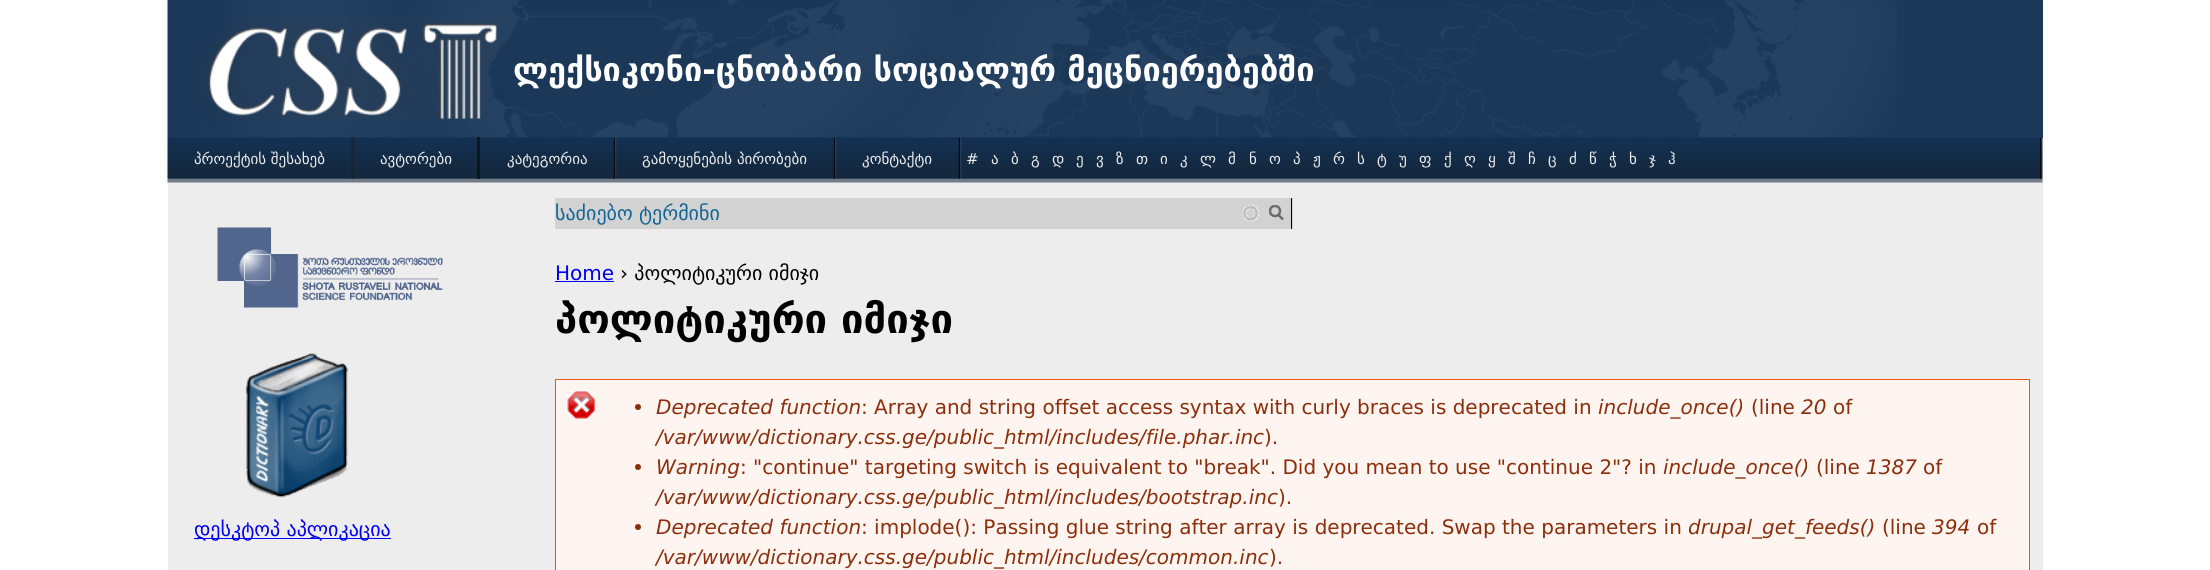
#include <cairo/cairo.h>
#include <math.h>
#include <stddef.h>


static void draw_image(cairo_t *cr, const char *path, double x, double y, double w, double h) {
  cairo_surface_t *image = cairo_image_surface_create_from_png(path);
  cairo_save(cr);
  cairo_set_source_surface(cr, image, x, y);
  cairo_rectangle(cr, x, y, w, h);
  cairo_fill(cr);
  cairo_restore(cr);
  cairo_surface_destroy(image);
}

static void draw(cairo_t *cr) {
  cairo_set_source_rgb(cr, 1, 1, 1);
  cairo_paint(cr);
  cairo_set_source_rgb(cr, 28 / 255.0, 57 / 255.0, 89 / 255.0);
  cairo_rectangle(cr, 168, 0, 1875, 138);
  cairo_fill(cr);
  draw_image(cr, "images/1.png", 167, 0, 1730, 138);
  draw_image(cr, "images/2.png", 202, 19, 295, 100);
  cairo_set_source_rgb(cr, 237 / 255.0, 237 / 255.0, 237 / 255.0);
  cairo_rectangle(cr, 168, 138, 1875, 432);
  cairo_fill(cr);
  draw_image(cr, "images/3.png", 167, 137, 1876, 46);
  cairo_set_source_rgba(cr, 29 / 255.0, 29 / 255.0, 29 / 255.0, 0.45);
  cairo_rectangle(cr, 351, 137, 3, 42);
  cairo_fill(cr);
  cairo_set_source_rgba(cr, 10 / 255.0, 10 / 255.0, 10 / 255.0, 0.62);
  cairo_rectangle(cr, 477, 137, 3, 42);
  cairo_fill(cr);
  draw_image(cr, "images/4.png", 613, 137, 4, 42);
  draw_image(cr, "images/5.png", 833, 137, 4, 42);
  draw_image(cr, "images/6.png", 958, 137, 4, 42);
  draw_image(cr, "images/7.png", 2040, 137, 2, 42);
  draw_image(cr, "images/8.png", 217, 227, 226, 81);
  draw_image(cr, "images/9.png", 246, 353, 102, 145);
  cairo_set_source_rgb(cr, 0, 0, 238 / 255.0);
  cairo_rectangle(cr, 194, 538, 197, 1);
  cairo_fill(cr);
  cairo_set_source_rgb(cr, 210 / 255.0, 210 / 255.0, 210 / 255.0);
  cairo_rectangle(cr, 555, 198, 738, 31);
  cairo_fill(cr);
  draw_image(cr, "images/10.png", 1242, 205, 17, 17);
  cairo_new_path(cr);
  cairo_move_to(cr, 1283, 219.5);
  cairo_line_to(cr, 1278, 214.5);
  cairo_set_source_rgb(cr, 108 / 255.0, 108 / 255.0, 108 / 255.0);
  cairo_set_line_width(cr, 2.5);
  cairo_stroke(cr);
  cairo_save(cr);
  cairo_rectangle(cr, 1269, 205, 15, 16);
  cairo_clip(cr);
  cairo_arc(cr, 1275, 211, 5, 0, 2 * M_PI);
  cairo_stroke(cr);
  cairo_restore(cr);
  cairo_set_source_rgb(cr, 0, 0, 0);
  cairo_rectangle(cr, 1291, 198, 1, 31);
  cairo_fill(cr);
  cairo_set_source_rgb(cr, 0, 0, 238 / 255.0);
  cairo_rectangle(cr, 555, 281, 59, 1);
  cairo_fill(cr);
  cairo_set_source_rgb(cr, 254 / 255.0, 245 / 255.0, 241 / 255.0);
  cairo_rectangle(cr, 556, 380, 1473, 190);
  cairo_fill(cr);
  draw_image(cr, "images/11.png", 566, 390, 30, 30);
  cairo_rectangle(cr, 555.5, 379.5, 1474, 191);
  cairo_set_source_rgb(cr, 237 / 255.0, 84 / 255.0, 29 / 255.0);
  cairo_set_line_width(cr, 1);
  cairo_stroke(cr);
  cairo_set_source_rgb(cr, 140 / 255.0, 46 / 255.0, 11 / 255.0);
  cairo_arc(cr, 638, 407, 3, 0, 2 * M_PI);
  cairo_fill(cr);
  cairo_arc(cr, 638, 467, 3, 0, 2 * M_PI);
  cairo_fill(cr);
  cairo_arc(cr, 638, 527, 3, 0, 2 * M_PI);
  cairo_fill(cr);
  cairo_select_font_face(cr, "DejaVu Sans", CAIRO_FONT_SLANT_NORMAL, CAIRO_FONT_WEIGHT_BOLD);
  cairo_set_font_size(cr, 32.5);
  cairo_set_source_rgb(cr, 1, 1, 1);
  cairo_move_to(cr, 513, 81);
  cairo_show_text(cr, "ლექსიკონი-ცნობარი სოციალურ მეცნიერებებში");
  cairo_select_font_face(cr, "DejaVu Sans", CAIRO_FONT_SLANT_NORMAL, CAIRO_FONT_WEIGHT_NORMAL);
  cairo_set_font_size(cr, 15);
  cairo_set_source_rgb(cr, 237 / 255.0, 237 / 255.0, 237 / 255.0);
  cairo_move_to(cr, 194, 164);
  cairo_show_text(cr, "პროექტის შესახებ");
  cairo_move_to(cr, 380, 164);
  cairo_show_text(cr, "ავტორები");
  cairo_move_to(cr, 507, 164);
  cairo_show_text(cr, "კატეგორია");
  cairo_move_to(cr, 642, 164);
  cairo_show_text(cr, "გამოყენების პირობები");
  cairo_move_to(cr, 862, 164);
  cairo_show_text(cr, "კონტაქტი");
  cairo_move_to(cr, 966, 164);
  cairo_show_text(cr, "#");
  cairo_move_to(cr, 991, 164);
  cairo_show_text(cr, "ა");
  cairo_move_to(cr, 1011, 164);
  cairo_show_text(cr, "ბ");
  cairo_move_to(cr, 1031, 164);
  cairo_show_text(cr, "გ");
  cairo_move_to(cr, 1052, 164);
  cairo_show_text(cr, "დ");
  cairo_move_to(cr, 1076, 164);
  cairo_show_text(cr, "ე");
  cairo_move_to(cr, 1096, 164);
  cairo_show_text(cr, "ვ");
  cairo_move_to(cr, 1116, 164);
  cairo_show_text(cr, "ზ");
  cairo_move_to(cr, 1136, 164);
  cairo_show_text(cr, "თ");
  cairo_move_to(cr, 1160, 164);
  cairo_show_text(cr, "ი");
  cairo_move_to(cr, 1180, 164);
  cairo_show_text(cr, "კ");
  cairo_move_to(cr, 1200, 164);
  cairo_show_text(cr, "ლ");
  cairo_move_to(cr, 1228, 164);
  cairo_show_text(cr, "მ");
  cairo_move_to(cr, 1249, 164);
  cairo_show_text(cr, "ნ");
  cairo_move_to(cr, 1269, 164);
  cairo_show_text(cr, "ო");
  cairo_move_to(cr, 1293, 164);
  cairo_show_text(cr, "პ");
  cairo_move_to(cr, 1313, 164);
  cairo_show_text(cr, "ჟ");
  cairo_move_to(cr, 1333, 164);
  cairo_show_text(cr, "რ");
  cairo_move_to(cr, 1357, 164);
  cairo_show_text(cr, "ს");
  cairo_move_to(cr, 1377, 164);
  cairo_show_text(cr, "ტ");
  cairo_move_to(cr, 1399, 164);
  cairo_show_text(cr, "უ");
  cairo_move_to(cr, 1419, 164);
  cairo_show_text(cr, "ფ");
  cairo_move_to(cr, 1444, 164);
  cairo_show_text(cr, "ქ");
  cairo_move_to(cr, 1464, 164);
  cairo_show_text(cr, "ღ");
  cairo_move_to(cr, 1488, 164);
  cairo_show_text(cr, "ყ");
  cairo_move_to(cr, 1508, 164);
  cairo_show_text(cr, "შ");
  cairo_move_to(cr, 1528, 164);
  cairo_show_text(cr, "ჩ");
  cairo_move_to(cr, 1548, 164);
  cairo_show_text(cr, "ც");
  cairo_move_to(cr, 1569, 164);
  cairo_show_text(cr, "ძ");
  cairo_move_to(cr, 1589, 164);
  cairo_show_text(cr, "წ");
  cairo_move_to(cr, 1609, 164);
  cairo_show_text(cr, "ჭ");
  cairo_move_to(cr, 1629, 164);
  cairo_show_text(cr, "ხ");
  cairo_move_to(cr, 1649, 164);
  cairo_show_text(cr, "ჯ");
  cairo_move_to(cr, 1668, 164);
  cairo_show_text(cr, "ჰ");
  cairo_set_font_size(cr, 20);
  cairo_set_source_rgb(cr, 0, 0, 238 / 255.0);
  cairo_move_to(cr, 194, 536);
  cairo_show_text(cr, "დესკტოპ აპლიკაცია");
  cairo_set_source_rgb(cr, 16 / 255.0, 101 / 255.0, 150 / 255.0);
  cairo_move_to(cr, 555, 220);
  cairo_show_text(cr, "საძიებო ტერმინი");
  cairo_set_source_rgb(cr, 0, 0, 238 / 255.0);
  cairo_move_to(cr, 555, 280);
  cairo_show_text(cr, "Home");
  cairo_set_source_rgb(cr, 0, 0, 0);
  cairo_move_to(cr, 620, 280);
  cairo_show_text(cr, "› პოლიტიკური იმიჯი");
  cairo_select_font_face(cr, "DejaVu Sans", CAIRO_FONT_SLANT_NORMAL, CAIRO_FONT_WEIGHT_BOLD);
  cairo_set_font_size(cr, 40);
  cairo_move_to(cr, 555, 333);
  cairo_show_text(cr, "პოლიტიკური იმიჯი");
  cairo_select_font_face(cr, "DejaVu Sans", CAIRO_FONT_SLANT_ITALIC, CAIRO_FONT_WEIGHT_NORMAL);
  cairo_set_font_size(cr, 20);
  cairo_set_source_rgb(cr, 140 / 255.0, 46 / 255.0, 11 / 255.0);
  cairo_move_to(cr, 656, 414);
  cairo_show_text(cr, "Deprecated function");
  cairo_select_font_face(cr, "DejaVu Sans", CAIRO_FONT_SLANT_NORMAL, CAIRO_FONT_WEIGHT_NORMAL);
  cairo_move_to(cr, 861, 414);
  cairo_show_text(cr, ": Array and string offset access syntax with curly braces is deprecated in");
  cairo_select_font_face(cr, "DejaVu Sans", CAIRO_FONT_SLANT_ITALIC, CAIRO_FONT_WEIGHT_NORMAL);
  cairo_move_to(cr, 1598, 414);
  cairo_show_text(cr, "include_once()");
  cairo_select_font_face(cr, "DejaVu Sans", CAIRO_FONT_SLANT_NORMAL, CAIRO_FONT_WEIGHT_NORMAL);
  cairo_move_to(cr, 1751, 414);
  cairo_show_text(cr, "(line");
  cairo_select_font_face(cr, "DejaVu Sans", CAIRO_FONT_SLANT_ITALIC, CAIRO_FONT_WEIGHT_NORMAL);
  cairo_move_to(cr, 1801, 414);
  cairo_show_text(cr, "20");
  cairo_select_font_face(cr, "DejaVu Sans", CAIRO_FONT_SLANT_NORMAL, CAIRO_FONT_WEIGHT_NORMAL);
  cairo_move_to(cr, 1833, 414);
  cairo_show_text(cr, "of");
  cairo_select_font_face(cr, "DejaVu Sans", CAIRO_FONT_SLANT_ITALIC, CAIRO_FONT_WEIGHT_NORMAL);
  cairo_move_to(cr, 656, 444);
  cairo_show_text(cr, "/var/www/dictionary.css.ge/public_html/includes/file.phar.inc");
  cairo_select_font_face(cr, "DejaVu Sans", CAIRO_FONT_SLANT_NORMAL, CAIRO_FONT_WEIGHT_NORMAL);
  cairo_move_to(cr, 1264, 444);
  cairo_show_text(cr, ").");
  cairo_select_font_face(cr, "DejaVu Sans", CAIRO_FONT_SLANT_ITALIC, CAIRO_FONT_WEIGHT_NORMAL);
  cairo_move_to(cr, 656, 474);
  cairo_show_text(cr, "Warning");
  cairo_select_font_face(cr, "DejaVu Sans", CAIRO_FONT_SLANT_NORMAL, CAIRO_FONT_WEIGHT_NORMAL);
  cairo_move_to(cr, 740, 474);
  cairo_show_text(cr, ": \"continue\" targeting switch is equivalent to \"break\". Did you mean to use \"continue 2\"? in");
  cairo_select_font_face(cr, "DejaVu Sans", CAIRO_FONT_SLANT_ITALIC, CAIRO_FONT_WEIGHT_NORMAL);
  cairo_move_to(cr, 1663, 474);
  cairo_show_text(cr, "include_once()");
  cairo_select_font_face(cr, "DejaVu Sans", CAIRO_FONT_SLANT_NORMAL, CAIRO_FONT_WEIGHT_NORMAL);
  cairo_move_to(cr, 1816, 474);
  cairo_show_text(cr, "(line");
  cairo_select_font_face(cr, "DejaVu Sans", CAIRO_FONT_SLANT_ITALIC, CAIRO_FONT_WEIGHT_NORMAL);
  cairo_move_to(cr, 1866, 474);
  cairo_show_text(cr, "1387");
  cairo_select_font_face(cr, "DejaVu Sans", CAIRO_FONT_SLANT_NORMAL, CAIRO_FONT_WEIGHT_NORMAL);
  cairo_move_to(cr, 1923, 474);
  cairo_show_text(cr, "of");
  cairo_select_font_face(cr, "DejaVu Sans", CAIRO_FONT_SLANT_ITALIC, CAIRO_FONT_WEIGHT_NORMAL);
  cairo_move_to(cr, 656, 504);
  cairo_show_text(cr, "/var/www/dictionary.css.ge/public_html/includes/bootstrap.inc");
  cairo_select_font_face(cr, "DejaVu Sans", CAIRO_FONT_SLANT_NORMAL, CAIRO_FONT_WEIGHT_NORMAL);
  cairo_move_to(cr, 1278, 504);
  cairo_show_text(cr, ").");
  cairo_select_font_face(cr, "DejaVu Sans", CAIRO_FONT_SLANT_ITALIC, CAIRO_FONT_WEIGHT_NORMAL);
  cairo_move_to(cr, 656, 534);
  cairo_show_text(cr, "Deprecated function");
  cairo_select_font_face(cr, "DejaVu Sans", CAIRO_FONT_SLANT_NORMAL, CAIRO_FONT_WEIGHT_NORMAL);
  cairo_move_to(cr, 861, 534);
  cairo_show_text(cr, ": implode(): Passing glue string after array is deprecated. Swap the parameters in");
  cairo_select_font_face(cr, "DejaVu Sans", CAIRO_FONT_SLANT_ITALIC, CAIRO_FONT_WEIGHT_NORMAL);
  cairo_move_to(cr, 1688, 534);
  cairo_show_text(cr, "drupal_get_feeds()");
  cairo_select_font_face(cr, "DejaVu Sans", CAIRO_FONT_SLANT_NORMAL, CAIRO_FONT_WEIGHT_NORMAL);
  cairo_move_to(cr, 1882, 534);
  cairo_show_text(cr, "(line");
  cairo_select_font_face(cr, "DejaVu Sans", CAIRO_FONT_SLANT_ITALIC, CAIRO_FONT_WEIGHT_NORMAL);
  cairo_move_to(cr, 1932, 534);
  cairo_show_text(cr, "394");
  cairo_select_font_face(cr, "DejaVu Sans", CAIRO_FONT_SLANT_NORMAL, CAIRO_FONT_WEIGHT_NORMAL);
  cairo_move_to(cr, 1977, 534);
  cairo_show_text(cr, "of");
  cairo_select_font_face(cr, "DejaVu Sans", CAIRO_FONT_SLANT_ITALIC, CAIRO_FONT_WEIGHT_NORMAL);
  cairo_move_to(cr, 656, 564);
  cairo_show_text(cr, "/var/www/dictionary.css.ge/public_html/includes/common.inc");
  cairo_select_font_face(cr, "DejaVu Sans", CAIRO_FONT_SLANT_NORMAL, CAIRO_FONT_WEIGHT_NORMAL);
  cairo_move_to(cr, 1269, 564);
  cairo_show_text(cr, ").");
}

int main(void) {
  cairo_surface_t *surface = cairo_image_surface_create(CAIRO_FORMAT_RGB24, 2210, 570);
  cairo_t *cr = cairo_create(surface);
  cairo_font_options_t *options = cairo_font_options_create();
  cairo_font_options_set_hint_metrics(options, CAIRO_HINT_METRICS_OFF);
  cairo_font_options_set_hint_style(options, CAIRO_HINT_STYLE_NONE);
  cairo_set_font_options(cr, options);
  cairo_set_miter_limit(cr, 4);
  draw(cr);
  cairo_surface_write_to_png(surface, "out.png");
  cairo_font_options_destroy(options);
  cairo_destroy(cr);
  cairo_surface_destroy(surface);
  return 0;
}
